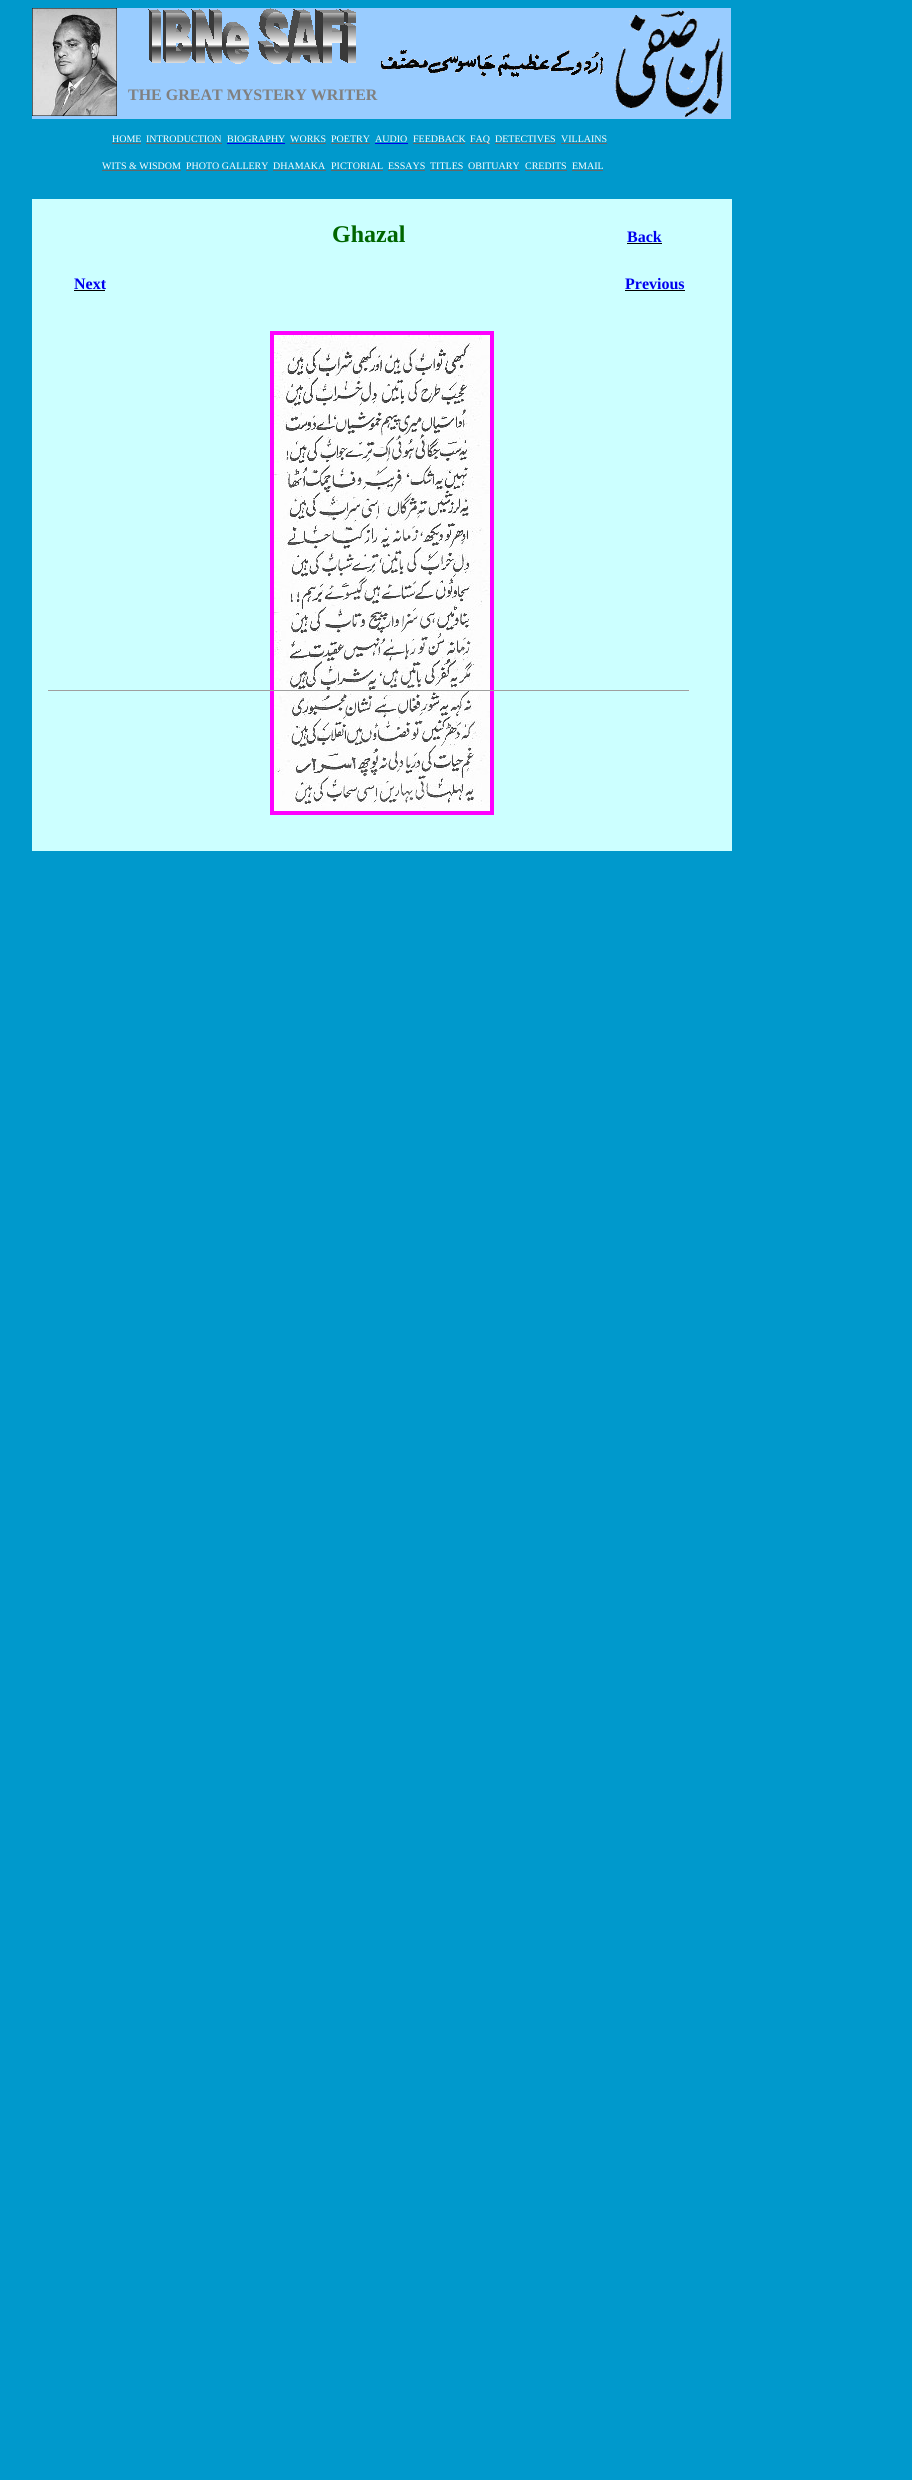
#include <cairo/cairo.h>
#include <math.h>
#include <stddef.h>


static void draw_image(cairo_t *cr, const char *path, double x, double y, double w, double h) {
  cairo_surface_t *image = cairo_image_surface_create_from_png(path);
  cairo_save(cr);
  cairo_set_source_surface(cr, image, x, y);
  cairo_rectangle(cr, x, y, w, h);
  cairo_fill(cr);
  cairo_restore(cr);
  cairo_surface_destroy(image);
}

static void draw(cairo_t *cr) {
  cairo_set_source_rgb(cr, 0, 153 / 255.0, 204 / 255.0);
  cairo_paint(cr);
  cairo_set_source_rgb(cr, 153 / 255.0, 204 / 255.0, 1);
  cairo_rectangle(cr, 32, 8, 699, 111);
  cairo_fill(cr);
  draw_image(cr, "images/1.png", 32, 8, 85, 108);
  draw_image(cr, "images/2.png", 381, 50, 223, 27);
  draw_image(cr, "images/3.png", 614, 9, 110, 108);
  draw_image(cr, "images/4.png", 148, 8, 208, 56);
  cairo_set_source_rgb(cr, 102 / 255.0, 102 / 255.0, 102 / 255.0);
  cairo_rectangle(cr, 112, 143, 29, 1);
  cairo_fill(cr);
  cairo_rectangle(cr, 146, 143, 76, 1);
  cairo_fill(cr);
  cairo_set_source_rgb(cr, 0, 0, 238 / 255.0);
  cairo_rectangle(cr, 227, 143, 58, 1);
  cairo_fill(cr);
  cairo_set_source_rgb(cr, 102 / 255.0, 102 / 255.0, 102 / 255.0);
  cairo_rectangle(cr, 290, 143, 36, 1);
  cairo_fill(cr);
  cairo_rectangle(cr, 331, 143, 39, 1);
  cairo_fill(cr);
  cairo_set_source_rgb(cr, 0, 0, 238 / 255.0);
  cairo_rectangle(cr, 375, 143, 33, 1);
  cairo_fill(cr);
  cairo_set_source_rgb(cr, 102 / 255.0, 102 / 255.0, 102 / 255.0);
  cairo_rectangle(cr, 413, 143, 52, 1);
  cairo_fill(cr);
  cairo_rectangle(cr, 470, 143, 20, 1);
  cairo_fill(cr);
  cairo_rectangle(cr, 495, 143, 61, 1);
  cairo_fill(cr);
  cairo_rectangle(cr, 561, 143, 46, 1);
  cairo_fill(cr);
  cairo_rectangle(cr, 102, 170, 79, 1);
  cairo_fill(cr);
  cairo_rectangle(cr, 186, 170, 82, 1);
  cairo_fill(cr);
  cairo_rectangle(cr, 273, 170, 53, 1);
  cairo_fill(cr);
  cairo_rectangle(cr, 331, 170, 52, 1);
  cairo_fill(cr);
  cairo_rectangle(cr, 388, 170, 37, 1);
  cairo_fill(cr);
  cairo_rectangle(cr, 430, 170, 33, 1);
  cairo_fill(cr);
  cairo_rectangle(cr, 468, 170, 52, 1);
  cairo_fill(cr);
  cairo_rectangle(cr, 525, 170, 42, 1);
  cairo_fill(cr);
  cairo_rectangle(cr, 572, 170, 31, 1);
  cairo_fill(cr);
  cairo_set_source_rgb(cr, 204 / 255.0, 1, 1);
  cairo_rectangle(cr, 32, 199, 700, 652);
  cairo_fill(cr);
  cairo_set_source_rgb(cr, 0, 0, 0);
  cairo_rectangle(cr, 627, 243, 35, 1);
  cairo_fill(cr);
  cairo_rectangle(cr, 74, 290, 31, 1);
  cairo_fill(cr);
  cairo_rectangle(cr, 625, 290, 60, 1);
  cairo_fill(cr);
  cairo_set_source_rgb(cr, 1, 0, 1);
  cairo_rectangle(cr, 270, 331, 224, 4);
  cairo_fill(cr);
  cairo_rectangle(cr, 490, 331, 4, 484);
  cairo_fill(cr);
  cairo_rectangle(cr, 270, 811, 224, 4);
  cairo_fill(cr);
  cairo_rectangle(cr, 270, 331, 4, 484);
  cairo_fill(cr);
  draw_image(cr, "images/5.png", 274, 335, 216, 476);
  cairo_set_source_rgb(cr, 159 / 255.0, 159 / 255.0, 159 / 255.0);
  cairo_rectangle(cr, 48, 690, 642, 1);
  cairo_fill(cr);
  cairo_set_source_rgb(cr, 238 / 255.0, 238 / 255.0, 238 / 255.0);
  cairo_rectangle(cr, 689, 690, 1, 1);
  cairo_fill(cr);
  cairo_select_font_face(cr, "Liberation Serif", CAIRO_FONT_SLANT_NORMAL, CAIRO_FONT_WEIGHT_BOLD);
  cairo_set_font_size(cr, 16);
  cairo_set_source_rgb(cr, 128 / 255.0, 128 / 255.0, 128 / 255.0);
  cairo_move_to(cr, 128, 100);
  cairo_show_text(cr, "THE GREAT MYSTERY WRITER");
  cairo_select_font_face(cr, "Liberation Serif", CAIRO_FONT_SLANT_NORMAL, CAIRO_FONT_WEIGHT_NORMAL);
  cairo_set_font_size(cr, 10);
  cairo_set_source_rgb(cr, 1, 1, 1);
  cairo_move_to(cr, 112, 142);
  cairo_show_text(cr, "HOME");
  cairo_move_to(cr, 146, 142);
  cairo_show_text(cr, "INTRODUCTION");
  cairo_move_to(cr, 227, 142);
  cairo_show_text(cr, "BIOGRAPHY");
  cairo_move_to(cr, 290, 142);
  cairo_show_text(cr, "WORKS");
  cairo_move_to(cr, 331, 142);
  cairo_show_text(cr, "POETRY");
  cairo_move_to(cr, 375, 142);
  cairo_show_text(cr, "AUDIO");
  cairo_move_to(cr, 413, 142);
  cairo_show_text(cr, "FEEDBACK");
  cairo_move_to(cr, 470, 142);
  cairo_show_text(cr, "FAQ");
  cairo_move_to(cr, 495, 142);
  cairo_show_text(cr, "DETECTIVES");
  cairo_move_to(cr, 561, 142);
  cairo_show_text(cr, "VILLAINS");
  cairo_move_to(cr, 102, 169);
  cairo_show_text(cr, "WITS & WISDOM");
  cairo_move_to(cr, 186, 169);
  cairo_show_text(cr, "PHOTO GALLERY");
  cairo_move_to(cr, 273, 169);
  cairo_show_text(cr, "DHAMAKA");
  cairo_move_to(cr, 331, 169);
  cairo_show_text(cr, "PICTORIAL");
  cairo_move_to(cr, 388, 169);
  cairo_show_text(cr, "ESSAYS");
  cairo_move_to(cr, 430, 169);
  cairo_show_text(cr, "TITLES");
  cairo_move_to(cr, 468, 169);
  cairo_show_text(cr, "OBITUARY");
  cairo_move_to(cr, 525, 169);
  cairo_show_text(cr, "CREDITS");
  cairo_move_to(cr, 572, 169);
  cairo_show_text(cr, "EMAIL");
  cairo_select_font_face(cr, "Liberation Serif", CAIRO_FONT_SLANT_NORMAL, CAIRO_FONT_WEIGHT_BOLD);
  cairo_set_font_size(cr, 24);
  cairo_set_source_rgb(cr, 0, 102 / 255.0, 0);
  cairo_move_to(cr, 332, 242);
  cairo_show_text(cr, "Ghazal");
  cairo_set_font_size(cr, 16);
  cairo_set_source_rgb(cr, 0, 0, 238 / 255.0);
  cairo_move_to(cr, 627, 242);
  cairo_show_text(cr, "Back");
  cairo_move_to(cr, 74, 289);
  cairo_show_text(cr, "Next");
  cairo_move_to(cr, 625, 289);
  cairo_show_text(cr, "Previous");
}

int main(void) {
  cairo_surface_t *surface = cairo_image_surface_create(CAIRO_FORMAT_RGB24, 912, 2480);
  cairo_t *cr = cairo_create(surface);
  cairo_font_options_t *options = cairo_font_options_create();
  cairo_font_options_set_hint_metrics(options, CAIRO_HINT_METRICS_OFF);
  cairo_font_options_set_hint_style(options, CAIRO_HINT_STYLE_NONE);
  cairo_set_font_options(cr, options);
  cairo_set_miter_limit(cr, 4);
  draw(cr);
  cairo_surface_write_to_png(surface, "out.png");
  cairo_font_options_destroy(options);
  cairo_destroy(cr);
  cairo_surface_destroy(surface);
  return 0;
}
